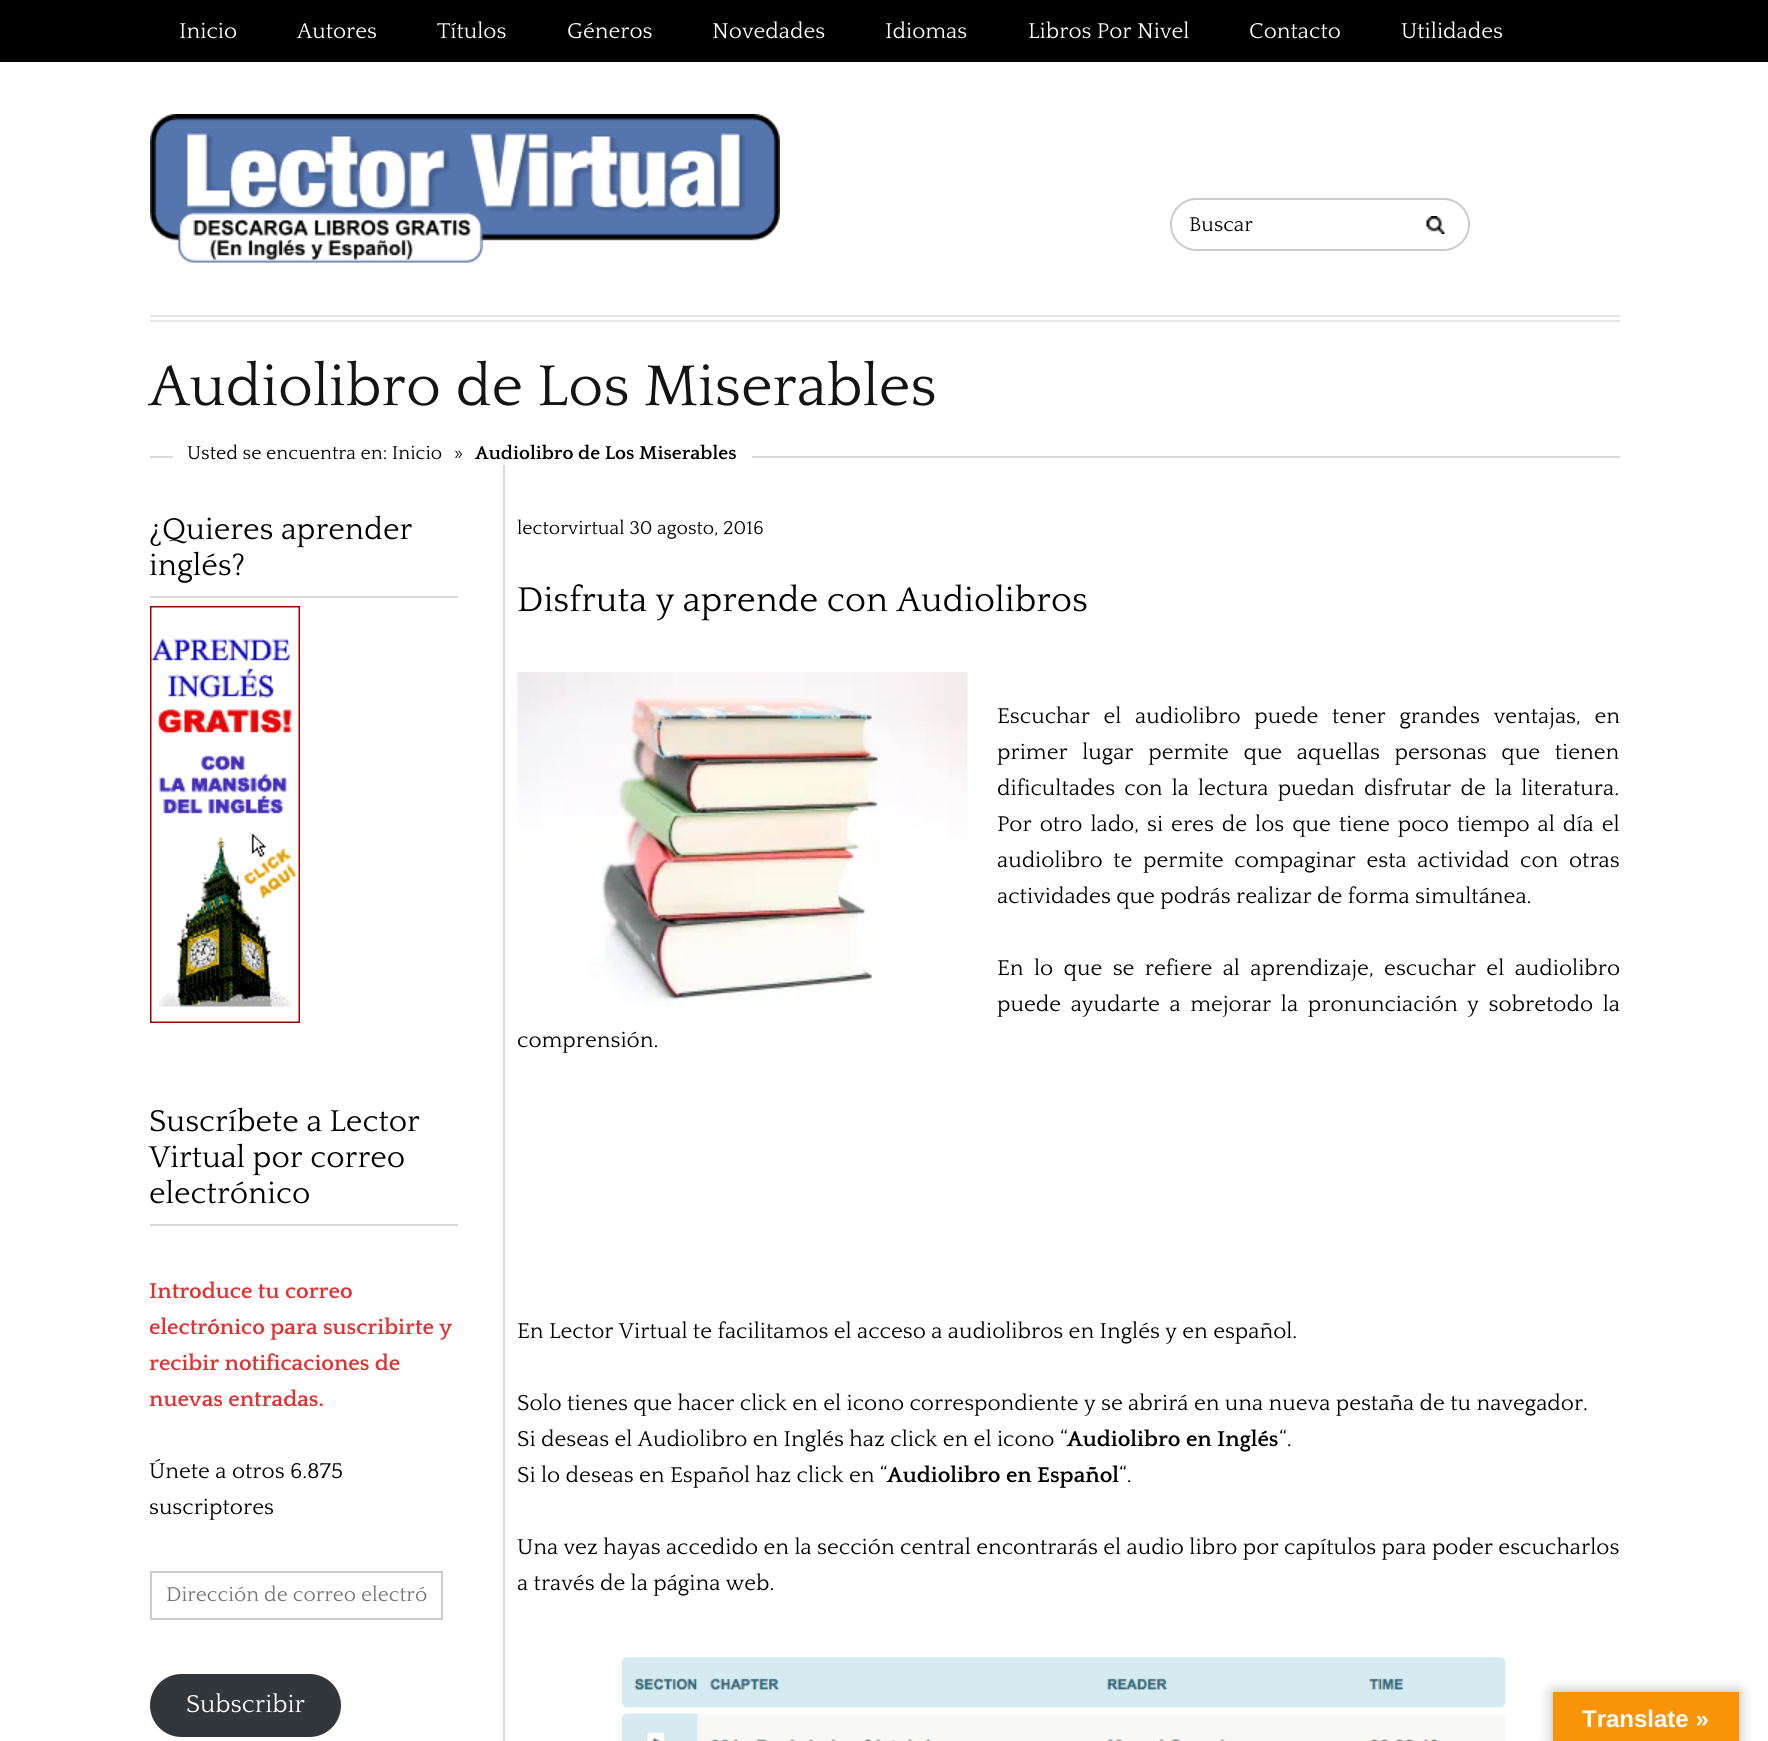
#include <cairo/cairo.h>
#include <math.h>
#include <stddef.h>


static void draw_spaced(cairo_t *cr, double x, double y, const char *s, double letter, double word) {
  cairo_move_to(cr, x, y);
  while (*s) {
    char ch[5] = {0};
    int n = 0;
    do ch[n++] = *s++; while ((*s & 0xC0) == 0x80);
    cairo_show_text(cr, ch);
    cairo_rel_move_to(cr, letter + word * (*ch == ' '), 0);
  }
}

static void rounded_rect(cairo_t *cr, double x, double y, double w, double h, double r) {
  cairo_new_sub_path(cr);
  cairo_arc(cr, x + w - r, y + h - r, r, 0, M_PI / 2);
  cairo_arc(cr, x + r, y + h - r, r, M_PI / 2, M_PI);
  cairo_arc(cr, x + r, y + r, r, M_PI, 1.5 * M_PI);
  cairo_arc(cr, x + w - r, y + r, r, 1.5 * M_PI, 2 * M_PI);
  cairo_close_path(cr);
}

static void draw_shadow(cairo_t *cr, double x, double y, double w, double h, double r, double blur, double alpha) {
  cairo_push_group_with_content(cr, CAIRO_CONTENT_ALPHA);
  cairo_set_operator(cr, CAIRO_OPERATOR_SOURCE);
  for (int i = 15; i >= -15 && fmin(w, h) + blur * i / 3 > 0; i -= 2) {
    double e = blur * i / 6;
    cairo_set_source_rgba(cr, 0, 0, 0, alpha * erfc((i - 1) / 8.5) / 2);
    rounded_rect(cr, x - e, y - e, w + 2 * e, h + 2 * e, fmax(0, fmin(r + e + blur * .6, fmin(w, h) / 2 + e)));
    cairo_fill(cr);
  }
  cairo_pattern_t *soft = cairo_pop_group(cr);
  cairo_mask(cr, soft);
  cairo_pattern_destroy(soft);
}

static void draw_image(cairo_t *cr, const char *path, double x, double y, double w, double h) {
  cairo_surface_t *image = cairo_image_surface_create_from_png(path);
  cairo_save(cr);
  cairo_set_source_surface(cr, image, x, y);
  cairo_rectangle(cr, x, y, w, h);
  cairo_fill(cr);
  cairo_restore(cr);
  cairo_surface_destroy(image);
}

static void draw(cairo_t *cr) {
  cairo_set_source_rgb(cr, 1, 1, 1);
  cairo_paint(cr);
  cairo_set_source_rgb(cr, 0, 0, 0);
  cairo_rectangle(cr, 0, 0, 1768, 62);
  cairo_fill(cr);
  cairo_set_source_rgb(cr, 229 / 255.0, 229 / 255.0, 229 / 255.0);
  cairo_rectangle(cr, 150, 315, 1470, 2);
  cairo_fill(cr);
  cairo_rectangle(cr, 150, 320, 1470, 2);
  cairo_fill(cr);
  draw_image(cr, "images/1.png", 150, 114, 630, 149);
  draw_image(cr, "images/2.png", 1426, 216, 19, 18);
  rounded_rect(cr, 1171, 199, 298, 51, 25.5);
  cairo_set_source_rgb(cr, 204 / 255.0, 204 / 255.0, 204 / 255.0);
  cairo_stroke(cr);
  cairo_set_source_rgb(cr, 217 / 255.0, 217 / 255.0, 217 / 255.0);
  cairo_rectangle(cr, 150, 456, 1470, 2);
  cairo_fill(cr);
  cairo_rectangle(cr, 503, 458, 2, 1283);
  cairo_fill(cr);
  cairo_set_source_rgb(cr, 1, 1, 1);
  cairo_rectangle(cr, 173, 456, 579, 9);
  cairo_fill(cr);
  cairo_set_source_rgb(cr, 217 / 255.0, 217 / 255.0, 217 / 255.0);
  cairo_rectangle(cr, 150, 596, 308, 2);
  cairo_fill(cr);
  draw_image(cr, "images/3.png", 150, 606, 150, 417);
  cairo_rectangle(cr, 150, 1224, 308, 2);
  cairo_fill(cr);
  cairo_rectangle(cr, 151, 1572, 291, 47);
  cairo_set_source_rgb(cr, 204 / 255.0, 204 / 255.0, 204 / 255.0);
  cairo_stroke(cr);
  cairo_set_source_rgb(cr, 50 / 255.0, 55 / 255.0, 60 / 255.0);
  rounded_rect(cr, 150, 1674, 191, 63, 31.5);
  cairo_fill(cr);
  draw_image(cr, "images/4.png", 517, 672, 451, 334);
  draw_image(cr, "images/5.png", 621, 1657, 885, 84);
  cairo_set_source_rgb(cr, 0, 0, 0);
  draw_shadow(cr, 1553, 1692, 186, 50, 0, 7, 0.3);
  cairo_set_source_rgb(cr, 248 / 255.0, 148 / 255.0, 6 / 255.0);
  cairo_rectangle(cr, 1553, 1692, 186, 49);
  cairo_fill(cr);
  cairo_select_font_face(cr, "Quattrocento", CAIRO_FONT_SLANT_NORMAL, CAIRO_FONT_WEIGHT_NORMAL);
  cairo_set_font_size(cr, 22.5);
  cairo_set_source_rgb(cr, 1, 1, 1);
  cairo_move_to(cr, 179, 38);
  cairo_show_text(cr, "Inicio");
  cairo_move_to(cr, 297, 38);
  cairo_show_text(cr, "Autores");
  cairo_move_to(cr, 437, 38);
  cairo_show_text(cr, "Títulos");
  cairo_move_to(cr, 567, 38);
  cairo_show_text(cr, "Géneros");
  cairo_move_to(cr, 712, 38);
  cairo_show_text(cr, "Novedades");
  cairo_move_to(cr, 885, 38);
  cairo_show_text(cr, "Idiomas");
  cairo_move_to(cr, 1028, 38);
  cairo_show_text(cr, "Libros Por Nivel");
  cairo_move_to(cr, 1249, 38);
  cairo_show_text(cr, "Contacto");
  cairo_move_to(cr, 1401, 38);
  cairo_show_text(cr, "Utilidades");
  cairo_set_font_size(cr, 21);
  cairo_set_source_rgb(cr, 0, 0, 0);
  cairo_move_to(cr, 1189, 231);
  cairo_show_text(cr, "Buscar");
  cairo_set_font_size(cr, 60);
  cairo_set_source_rgb(cr, 20 / 255.0, 20 / 255.0, 20 / 255.0);
  cairo_move_to(cr, 149, 405);
  cairo_show_text(cr, "Audiolibro de Los Miserables");
  cairo_set_font_size(cr, 19.5);
  cairo_set_source_rgb(cr, 0, 0, 0);
  cairo_move_to(cr, 187, 459);
  cairo_show_text(cr, "Usted se encuentra en: Inicio");
  cairo_move_to(cr, 454, 459);
  cairo_show_text(cr, "»");
  cairo_select_font_face(cr, "Quattrocento", CAIRO_FONT_SLANT_NORMAL, CAIRO_FONT_WEIGHT_BOLD);
  cairo_move_to(cr, 475, 459);
  cairo_show_text(cr, "Audiolibro de Los Miserables");
  cairo_select_font_face(cr, "Quattrocento", CAIRO_FONT_SLANT_NORMAL, CAIRO_FONT_WEIGHT_NORMAL);
  cairo_set_font_size(cr, 31.5);
  cairo_move_to(cr, 149, 539);
  cairo_show_text(cr, "¿Quieres aprender");
  cairo_move_to(cr, 149, 575);
  cairo_show_text(cr, "inglés?");
  cairo_move_to(cr, 149, 1131);
  cairo_show_text(cr, "Suscríbete a Lector");
  cairo_move_to(cr, 149, 1167);
  cairo_show_text(cr, "Virtual por correo");
  cairo_move_to(cr, 149, 1203);
  cairo_show_text(cr, "electrónico");
  cairo_select_font_face(cr, "Quattrocento", CAIRO_FONT_SLANT_NORMAL, CAIRO_FONT_WEIGHT_BOLD);
  cairo_set_font_size(cr, 22.5);
  cairo_set_source_rgb(cr, 221 / 255.0, 51 / 255.0, 51 / 255.0);
  cairo_move_to(cr, 149, 1298);
  cairo_show_text(cr, "Introduce tu correo");
  cairo_move_to(cr, 149, 1334);
  cairo_show_text(cr, "electrónico para suscribirte y");
  cairo_move_to(cr, 149, 1370);
  cairo_show_text(cr, "recibir notificaciones de");
  cairo_move_to(cr, 149, 1406);
  cairo_show_text(cr, "nuevas entradas.");
  cairo_select_font_face(cr, "Quattrocento", CAIRO_FONT_SLANT_NORMAL, CAIRO_FONT_WEIGHT_NORMAL);
  cairo_set_source_rgb(cr, 0, 0, 0);
  cairo_move_to(cr, 149, 1478);
  cairo_show_text(cr, "Únete a otros 6.875");
  cairo_move_to(cr, 149, 1514);
  cairo_show_text(cr, "suscriptores");
  cairo_set_font_size(cr, 21);
  cairo_set_source_rgb(cr, 117 / 255.0, 117 / 255.0, 117 / 255.0);
  cairo_move_to(cr, 166, 1601);
  cairo_show_text(cr, "Dirección de correo electró");
  cairo_set_font_size(cr, 25.5);
  cairo_set_source_rgb(cr, 1, 1, 1);
  cairo_move_to(cr, 186, 1712);
  cairo_show_text(cr, "Subscribir");
  cairo_set_font_size(cr, 19.5);
  cairo_set_source_rgb(cr, 0, 0, 0);
  cairo_move_to(cr, 517, 534);
  cairo_show_text(cr, "lectorvirtual 30 agosto, 2016");
  cairo_set_font_size(cr, 36);
  cairo_move_to(cr, 517, 611);
  cairo_show_text(cr, "Disfruta y aprende con Audiolibros");
  cairo_set_font_size(cr, 22.5);
  draw_spaced(cr, 997, 723, "Escuchar el audiolibro puede tener grandes ventajas, en", 0, 8.25);
  draw_spaced(cr, 997, 759, "primer lugar permite que aquellas personas que tienen", 0, 9.25);
  draw_spaced(cr, 997, 795, "dificultades con la lectura puedan disfrutar de la literatura.", 0, 3.75);
  draw_spaced(cr, 997, 831, "Por otro lado, si eres de los que tiene poco tiempo al día el", 0, 2.6);
  draw_spaced(cr, 997, 867, "audiolibro te permite compaginar esta actividad con otras", 0, 5.25);
  cairo_move_to(cr, 997, 903);
  cairo_show_text(cr, "actividades que podrás realizar de forma simultánea.");
  draw_spaced(cr, 997, 975, "En lo que se refiere al aprendizaje, escuchar el audiolibro", 0, 5);
  draw_spaced(cr, 997, 1011, "puede ayudarte a mejorar la pronunciación y sobretodo la", 0, 4.25);
  cairo_move_to(cr, 517, 1047);
  cairo_show_text(cr, "comprensión.");
  cairo_move_to(cr, 517, 1338);
  cairo_show_text(cr, "En Lector Virtual te facilitamos el acceso a audiolibros en Inglés y en español.");
  cairo_move_to(cr, 517, 1410);
  cairo_show_text(cr, "Solo tienes que hacer click en el icono correspondiente y se abrirá en una nueva pestaña de tu navegador.");
  cairo_move_to(cr, 517, 1446);
  cairo_show_text(cr, "Si deseas el Audiolibro en Inglés haz click en el icono “");
  cairo_select_font_face(cr, "Quattrocento", CAIRO_FONT_SLANT_NORMAL, CAIRO_FONT_WEIGHT_BOLD);
  cairo_move_to(cr, 1067, 1446);
  cairo_show_text(cr, "Audiolibro en Inglés");
  cairo_select_font_face(cr, "Quattrocento", CAIRO_FONT_SLANT_NORMAL, CAIRO_FONT_WEIGHT_NORMAL);
  cairo_move_to(cr, 1279, 1446);
  cairo_show_text(cr, "“.");
  cairo_move_to(cr, 517, 1482);
  cairo_show_text(cr, "Si lo deseas en Español haz click en “");
  cairo_select_font_face(cr, "Quattrocento", CAIRO_FONT_SLANT_NORMAL, CAIRO_FONT_WEIGHT_BOLD);
  cairo_move_to(cr, 887, 1482);
  cairo_show_text(cr, "Audiolibro en Español");
  cairo_select_font_face(cr, "Quattrocento", CAIRO_FONT_SLANT_NORMAL, CAIRO_FONT_WEIGHT_NORMAL);
  cairo_move_to(cr, 1119, 1482);
  cairo_show_text(cr, "“.");
  cairo_move_to(cr, 517, 1554);
  cairo_show_text(cr, "Una vez hayas accedido en la sección central encontrarás el audio libro por capítulos para poder escucharlos");
  cairo_move_to(cr, 517, 1590);
  cairo_show_text(cr, "a través de la página web.");
  cairo_select_font_face(cr, "Liberation Sans", CAIRO_FONT_SLANT_NORMAL, CAIRO_FONT_WEIGHT_BOLD);
  cairo_set_font_size(cr, 24);
  cairo_set_source_rgb(cr, 1, 1, 1);
  cairo_move_to(cr, 1582, 1727);
  cairo_show_text(cr, "Translate »");
}

int main(void) {
  cairo_surface_t *surface = cairo_image_surface_create(CAIRO_FORMAT_RGB24, 1768, 1741);
  cairo_t *cr = cairo_create(surface);
  cairo_font_options_t *options = cairo_font_options_create();
  cairo_font_options_set_hint_metrics(options, CAIRO_HINT_METRICS_OFF);
  cairo_font_options_set_hint_style(options, CAIRO_HINT_STYLE_NONE);
  cairo_set_font_options(cr, options);
  cairo_set_miter_limit(cr, 4);
  draw(cr);
  cairo_surface_write_to_png(surface, "out.png");
  cairo_font_options_destroy(options);
  cairo_destroy(cr);
  cairo_surface_destroy(surface);
  return 0;
}
